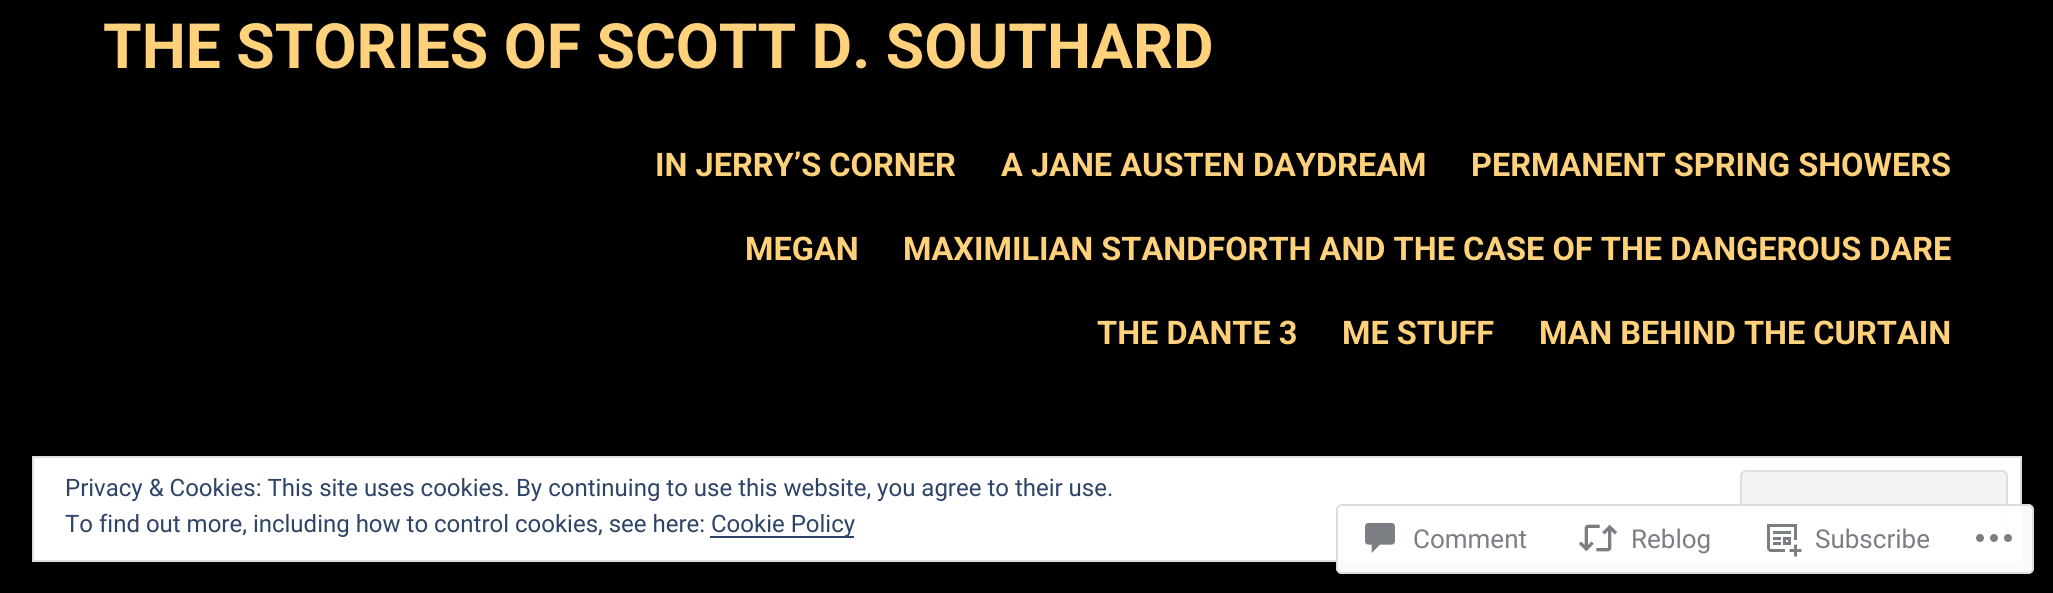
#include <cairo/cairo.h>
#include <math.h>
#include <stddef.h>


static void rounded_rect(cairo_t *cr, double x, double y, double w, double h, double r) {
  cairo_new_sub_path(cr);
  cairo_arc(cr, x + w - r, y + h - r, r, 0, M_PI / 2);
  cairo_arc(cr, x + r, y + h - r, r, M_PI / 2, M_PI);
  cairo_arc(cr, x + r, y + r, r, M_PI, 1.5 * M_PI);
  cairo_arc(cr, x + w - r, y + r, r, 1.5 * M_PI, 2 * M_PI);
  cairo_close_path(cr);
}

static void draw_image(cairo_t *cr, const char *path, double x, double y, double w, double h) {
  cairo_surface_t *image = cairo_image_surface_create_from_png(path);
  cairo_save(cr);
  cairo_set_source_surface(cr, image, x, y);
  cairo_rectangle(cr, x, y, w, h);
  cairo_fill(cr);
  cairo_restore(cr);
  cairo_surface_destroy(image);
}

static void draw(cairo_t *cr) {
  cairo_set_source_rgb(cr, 0, 0, 0);
  cairo_paint(cr);
  cairo_set_source_rgb(cr, 1, 1, 1);
  cairo_rectangle(cr, 33, 457, 1988, 104);
  cairo_fill_preserve(cr);
  cairo_set_source_rgb(cr, 222 / 255.0, 222 / 255.0, 222 / 255.0);
  cairo_stroke(cr);
  cairo_set_source_rgb(cr, 243 / 255.0, 243 / 255.0, 243 / 255.0);
  rounded_rect(cr, 1741, 471, 266, 76, 5);
  cairo_fill_preserve(cr);
  cairo_set_source_rgb(cr, 222 / 255.0, 222 / 255.0, 222 / 255.0);
  cairo_stroke(cr);
  cairo_set_source_rgb(cr, 46 / 255.0, 68 / 255.0, 103 / 255.0);
  cairo_rectangle(cr, 710, 536, 144, 2);
  cairo_fill(cr);
  cairo_set_source_rgba(cr, 1, 1, 1, 0.98);
  rounded_rect(cr, 1336, 504, 698, 70, 6);
  cairo_fill(cr);
  rounded_rect(cr, 1337, 505, 696, 68, 5);
  cairo_set_source_rgba(cr, 220 / 255.0, 220 / 255.0, 222 / 255.0, 0.98);
  cairo_stroke(cr);
  draw_image(cr, "images/1.png", 1365, 523, 30, 30);
  draw_image(cr, "images/2.png", 1578, 524, 40, 28);
  draw_image(cr, "images/3.png", 1767, 524, 35, 33);
  draw_image(cr, "images/4.png", 1976, 534, 36, 8);
  cairo_select_font_face(cr, "Roboto", CAIRO_FONT_SLANT_NORMAL, CAIRO_FONT_WEIGHT_BOLD);
  cairo_set_font_size(cr, 62.4);
  cairo_set_source_rgb(cr, 1, 209 / 255.0, 123 / 255.0);
  cairo_move_to(cr, 103, 68);
  cairo_show_text(cr, "THE STORIES OF SCOTT D. SOUTHARD");
  cairo_set_font_size(cr, 32.5);
  cairo_move_to(cr, 655, 176);
  cairo_show_text(cr, "IN JERRY’S CORNER");
  cairo_move_to(cr, 1001, 176);
  cairo_show_text(cr, "A JANE AUSTEN DAYDREAM");
  cairo_move_to(cr, 1471, 176);
  cairo_show_text(cr, "PERMANENT SPRING SHOWERS");
  cairo_move_to(cr, 745, 260);
  cairo_show_text(cr, "MEGAN");
  cairo_move_to(cr, 903, 260);
  cairo_show_text(cr, "MAXIMILIAN STANDFORTH AND THE CASE OF THE DANGEROUS DARE");
  cairo_move_to(cr, 1097, 344);
  cairo_show_text(cr, "THE DANTE 3");
  cairo_move_to(cr, 1342, 344);
  cairo_show_text(cr, "ME STUFF");
  cairo_move_to(cr, 1539, 344);
  cairo_show_text(cr, "MAN BEHIND THE CURTAIN");
  cairo_select_font_face(cr, "Roboto", CAIRO_FONT_SLANT_NORMAL, CAIRO_FONT_WEIGHT_NORMAL);
  cairo_set_font_size(cr, 24);
  cairo_set_source_rgb(cr, 46 / 255.0, 68 / 255.0, 103 / 255.0);
  cairo_move_to(cr, 65, 496);
  cairo_show_text(cr, "Privacy & Cookies: This site uses cookies. By continuing to use this website, you agree to their use.");
  cairo_move_to(cr, 65, 532);
  cairo_show_text(cr, "To find out more, including how to control cookies, see here:");
  cairo_move_to(cr, 711, 532);
  cairo_show_text(cr, "Cookie Policy");
  cairo_set_font_size(cr, 26);
  cairo_set_source_rgb(cr, 123 / 255.0, 127 / 255.0, 133 / 255.0);
  cairo_move_to(cr, 1413, 548);
  cairo_show_text(cr, "Comment");
  cairo_move_to(cr, 1631, 548);
  cairo_show_text(cr, "Reblog");
  cairo_move_to(cr, 1815, 548);
  cairo_show_text(cr, "Subscribe");
}

int main(void) {
  cairo_surface_t *surface = cairo_image_surface_create(CAIRO_FORMAT_RGB24, 2053, 593);
  cairo_t *cr = cairo_create(surface);
  cairo_font_options_t *options = cairo_font_options_create();
  cairo_font_options_set_hint_metrics(options, CAIRO_HINT_METRICS_OFF);
  cairo_font_options_set_hint_style(options, CAIRO_HINT_STYLE_NONE);
  cairo_set_font_options(cr, options);
  cairo_set_miter_limit(cr, 4);
  draw(cr);
  cairo_surface_write_to_png(surface, "out.png");
  cairo_font_options_destroy(options);
  cairo_destroy(cr);
  cairo_surface_destroy(surface);
  return 0;
}
